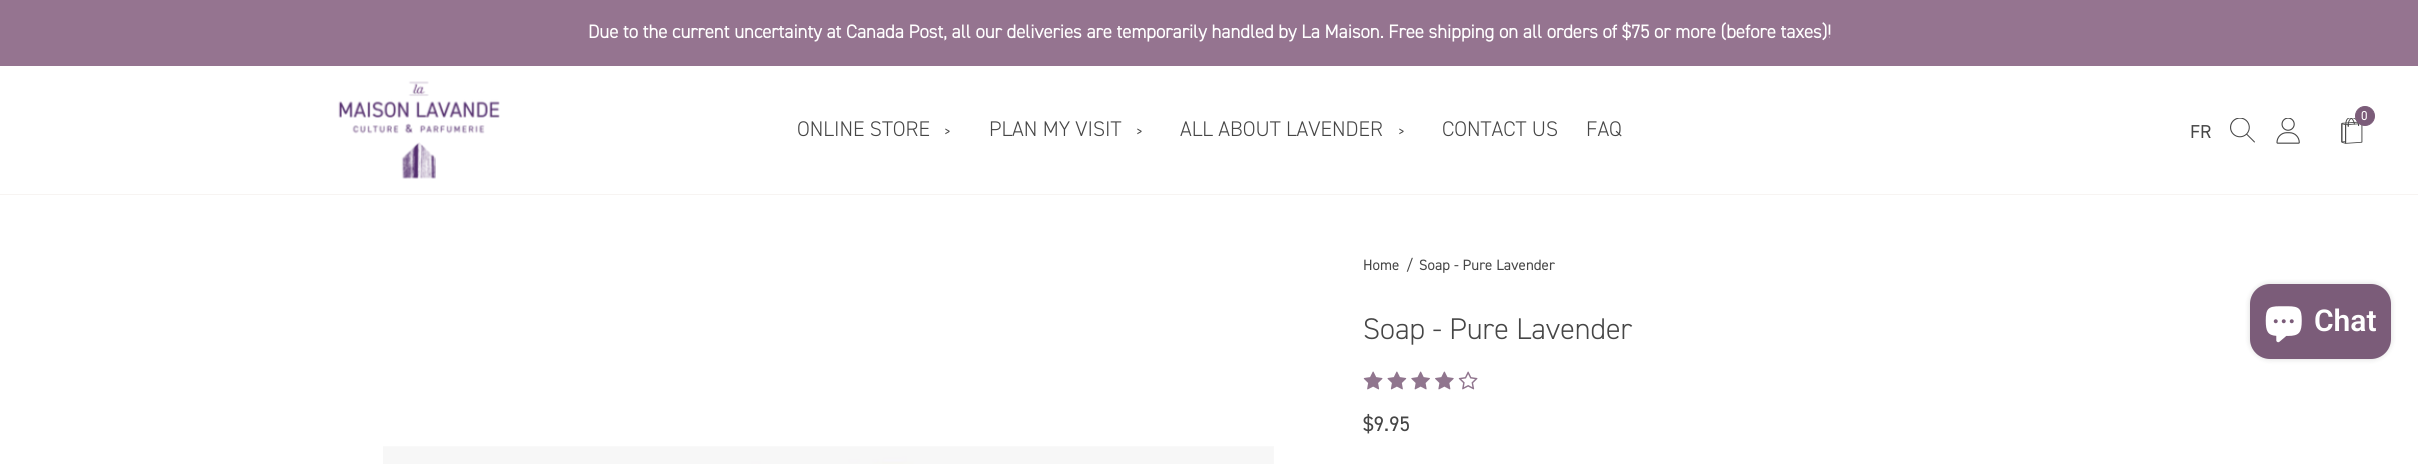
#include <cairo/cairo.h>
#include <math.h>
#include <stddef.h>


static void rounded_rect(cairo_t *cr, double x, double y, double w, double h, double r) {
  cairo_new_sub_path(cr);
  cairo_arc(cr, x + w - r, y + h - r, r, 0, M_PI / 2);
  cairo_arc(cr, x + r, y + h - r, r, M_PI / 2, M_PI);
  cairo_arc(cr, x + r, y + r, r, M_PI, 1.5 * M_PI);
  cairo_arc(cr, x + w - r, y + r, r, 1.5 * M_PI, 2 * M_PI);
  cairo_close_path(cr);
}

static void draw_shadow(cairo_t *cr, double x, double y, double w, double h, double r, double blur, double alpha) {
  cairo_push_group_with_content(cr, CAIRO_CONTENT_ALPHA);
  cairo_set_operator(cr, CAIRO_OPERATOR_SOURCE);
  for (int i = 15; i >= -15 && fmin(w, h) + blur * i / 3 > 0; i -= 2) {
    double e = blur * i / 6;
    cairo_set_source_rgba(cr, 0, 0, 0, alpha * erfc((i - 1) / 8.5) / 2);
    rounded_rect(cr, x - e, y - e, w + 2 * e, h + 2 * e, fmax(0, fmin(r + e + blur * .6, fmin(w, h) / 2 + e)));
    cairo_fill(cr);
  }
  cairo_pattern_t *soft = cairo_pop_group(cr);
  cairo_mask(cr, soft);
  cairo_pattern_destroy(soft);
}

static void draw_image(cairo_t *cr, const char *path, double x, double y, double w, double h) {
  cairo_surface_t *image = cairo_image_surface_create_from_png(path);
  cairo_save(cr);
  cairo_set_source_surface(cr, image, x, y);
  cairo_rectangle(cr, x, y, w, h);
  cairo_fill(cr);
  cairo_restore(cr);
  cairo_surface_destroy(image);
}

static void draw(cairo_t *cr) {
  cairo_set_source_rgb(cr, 1, 1, 1);
  cairo_paint(cr);
  cairo_set_source_rgb(cr, 149 / 255.0, 116 / 255.0, 144 / 255.0);
  cairo_rectangle(cr, 0, 0, 2418, 66);
  cairo_fill(cr);
  cairo_set_source_rgb(cr, 247 / 255.0, 244 / 255.0, 242 / 255.0);
  cairo_rectangle(cr, 0, 194, 2418, 1);
  cairo_fill(cr);
  draw_image(cr, "images/1.png", 338, 81, 162, 98);
  draw_image(cr, "images/2.png", 2341, 118, 22, 26);
  cairo_set_source_rgb(cr, 123 / 255.0, 92 / 255.0, 121 / 255.0);
  cairo_arc(cr, 2365, 116, 9.5, 0, 2 * M_PI);
  cairo_fill_preserve(cr);
  cairo_set_line_width(cr, 1);
  cairo_stroke(cr);
  draw_image(cr, "images/3.png", 2230, 118, 25, 25);
  draw_image(cr, "images/4.png", 2276, 118, 24, 26);
  draw_image(cr, "images/5.png", 1363, 371, 20, 19);
  draw_image(cr, "images/6.png", 1387, 371, 20, 19);
  draw_image(cr, "images/7.png", 1411, 371, 19, 19);
  draw_image(cr, "images/8.png", 1435, 371, 19, 19);
  draw_image(cr, "images/9.png", 1458, 371, 20, 19);
  draw_image(cr, "images/10.png", 383, 446, 891, 18);
  cairo_set_source_rgb(cr, 0, 0, 0);
  draw_shadow(cr, 2250, 284, 141, 75, 20, 3, 0.15);
  cairo_set_source_rgb(cr, 123 / 255.0, 92 / 255.0, 121 / 255.0);
  rounded_rect(cr, 2250, 284, 141, 75, 20);
  cairo_fill(cr);
  draw_image(cr, "images/11.png", 2265, 306, 37, 37);
  cairo_select_font_face(cr, "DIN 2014", CAIRO_FONT_SLANT_NORMAL, CAIRO_FONT_WEIGHT_BOLD);
  cairo_set_font_size(cr, 18.75);
  cairo_set_source_rgb(cr, 1, 1, 1);
  cairo_move_to(cr, 588, 38);
  cairo_show_text(cr, "Due to the current uncertainty at Canada Post, all our deliveries are temporarily handled by La Maison. Free shipping on all orders of $75 or more (before taxes)!");
  cairo_select_font_face(cr, "DIN 2014 Light", CAIRO_FONT_SLANT_NORMAL, CAIRO_FONT_WEIGHT_NORMAL);
  cairo_set_font_size(cr, 21.25);
  cairo_set_source_rgb(cr, 70 / 255.0, 70 / 255.0, 70 / 255.0);
  cairo_move_to(cr, 797, 136);
  cairo_show_text(cr, "ONLINE STORE");
  cairo_select_font_face(cr, "DIN 2014", CAIRO_FONT_SLANT_NORMAL, CAIRO_FONT_WEIGHT_NORMAL);
  cairo_set_font_size(cr, 13);
  cairo_move_to(cr, 944, 136);
  cairo_show_text(cr, ">");
  cairo_select_font_face(cr, "DIN 2014 Light", CAIRO_FONT_SLANT_NORMAL, CAIRO_FONT_WEIGHT_NORMAL);
  cairo_set_font_size(cr, 21.25);
  cairo_move_to(cr, 989, 136);
  cairo_show_text(cr, "PLAN MY VISIT");
  cairo_select_font_face(cr, "DIN 2014", CAIRO_FONT_SLANT_NORMAL, CAIRO_FONT_WEIGHT_NORMAL);
  cairo_set_font_size(cr, 13);
  cairo_move_to(cr, 1136, 136);
  cairo_show_text(cr, ">");
  cairo_select_font_face(cr, "DIN 2014 Light", CAIRO_FONT_SLANT_NORMAL, CAIRO_FONT_WEIGHT_NORMAL);
  cairo_set_font_size(cr, 21.25);
  cairo_move_to(cr, 1180, 136);
  cairo_show_text(cr, "ALL ABOUT LAVENDER");
  cairo_select_font_face(cr, "DIN 2014", CAIRO_FONT_SLANT_NORMAL, CAIRO_FONT_WEIGHT_NORMAL);
  cairo_set_font_size(cr, 13);
  cairo_move_to(cr, 1398, 136);
  cairo_show_text(cr, ">");
  cairo_select_font_face(cr, "DIN 2014 Light", CAIRO_FONT_SLANT_NORMAL, CAIRO_FONT_WEIGHT_NORMAL);
  cairo_set_font_size(cr, 21.25);
  cairo_move_to(cr, 1442, 136);
  cairo_show_text(cr, "CONTACT US");
  cairo_move_to(cr, 1586, 136);
  cairo_show_text(cr, "FAQ");
  cairo_select_font_face(cr, "DIN 2014", CAIRO_FONT_SLANT_NORMAL, CAIRO_FONT_WEIGHT_NORMAL);
  cairo_set_font_size(cr, 13);
  cairo_set_source_rgb(cr, 1, 1, 1);
  cairo_move_to(cr, 2361, 120);
  cairo_show_text(cr, "0");
  cairo_set_font_size(cr, 18.75);
  cairo_set_source_rgb(cr, 70 / 255.0, 70 / 255.0, 70 / 255.0);
  cairo_move_to(cr, 2190, 138);
  cairo_show_text(cr, "FR");
  cairo_set_font_size(cr, 15);
  cairo_move_to(cr, 1363, 270);
  cairo_show_text(cr, "Home");
  cairo_move_to(cr, 1406, 270);
  cairo_show_text(cr, "/");
  cairo_move_to(cr, 1419, 270);
  cairo_show_text(cr, "Soap - Pure Lavender");
  cairo_select_font_face(cr, "DIN 2014 Light", CAIRO_FONT_SLANT_NORMAL, CAIRO_FONT_WEIGHT_NORMAL);
  cairo_set_font_size(cr, 30);
  cairo_move_to(cr, 1363, 339);
  cairo_show_text(cr, "Soap - Pure Lavender");
  cairo_select_font_face(cr, "DIN 2014", CAIRO_FONT_SLANT_NORMAL, CAIRO_FONT_WEIGHT_NORMAL);
  cairo_set_font_size(cr, 21);
  cairo_move_to(cr, 1363, 431);
  cairo_show_text(cr, "$9.95");
  cairo_select_font_face(cr, "Roboto SemiBold", CAIRO_FONT_SLANT_NORMAL, CAIRO_FONT_WEIGHT_NORMAL);
  cairo_set_font_size(cr, 30);
  cairo_set_source_rgb(cr, 1, 1, 1);
  cairo_move_to(cr, 2314, 331);
  cairo_show_text(cr, "Chat");
}

int main(void) {
  cairo_surface_t *surface = cairo_image_surface_create(CAIRO_FORMAT_RGB24, 2418, 464);
  cairo_t *cr = cairo_create(surface);
  cairo_font_options_t *options = cairo_font_options_create();
  cairo_font_options_set_hint_metrics(options, CAIRO_HINT_METRICS_OFF);
  cairo_font_options_set_hint_style(options, CAIRO_HINT_STYLE_NONE);
  cairo_set_font_options(cr, options);
  cairo_set_miter_limit(cr, 4);
  draw(cr);
  cairo_surface_write_to_png(surface, "out.png");
  cairo_font_options_destroy(options);
  cairo_destroy(cr);
  cairo_surface_destroy(surface);
  return 0;
}
